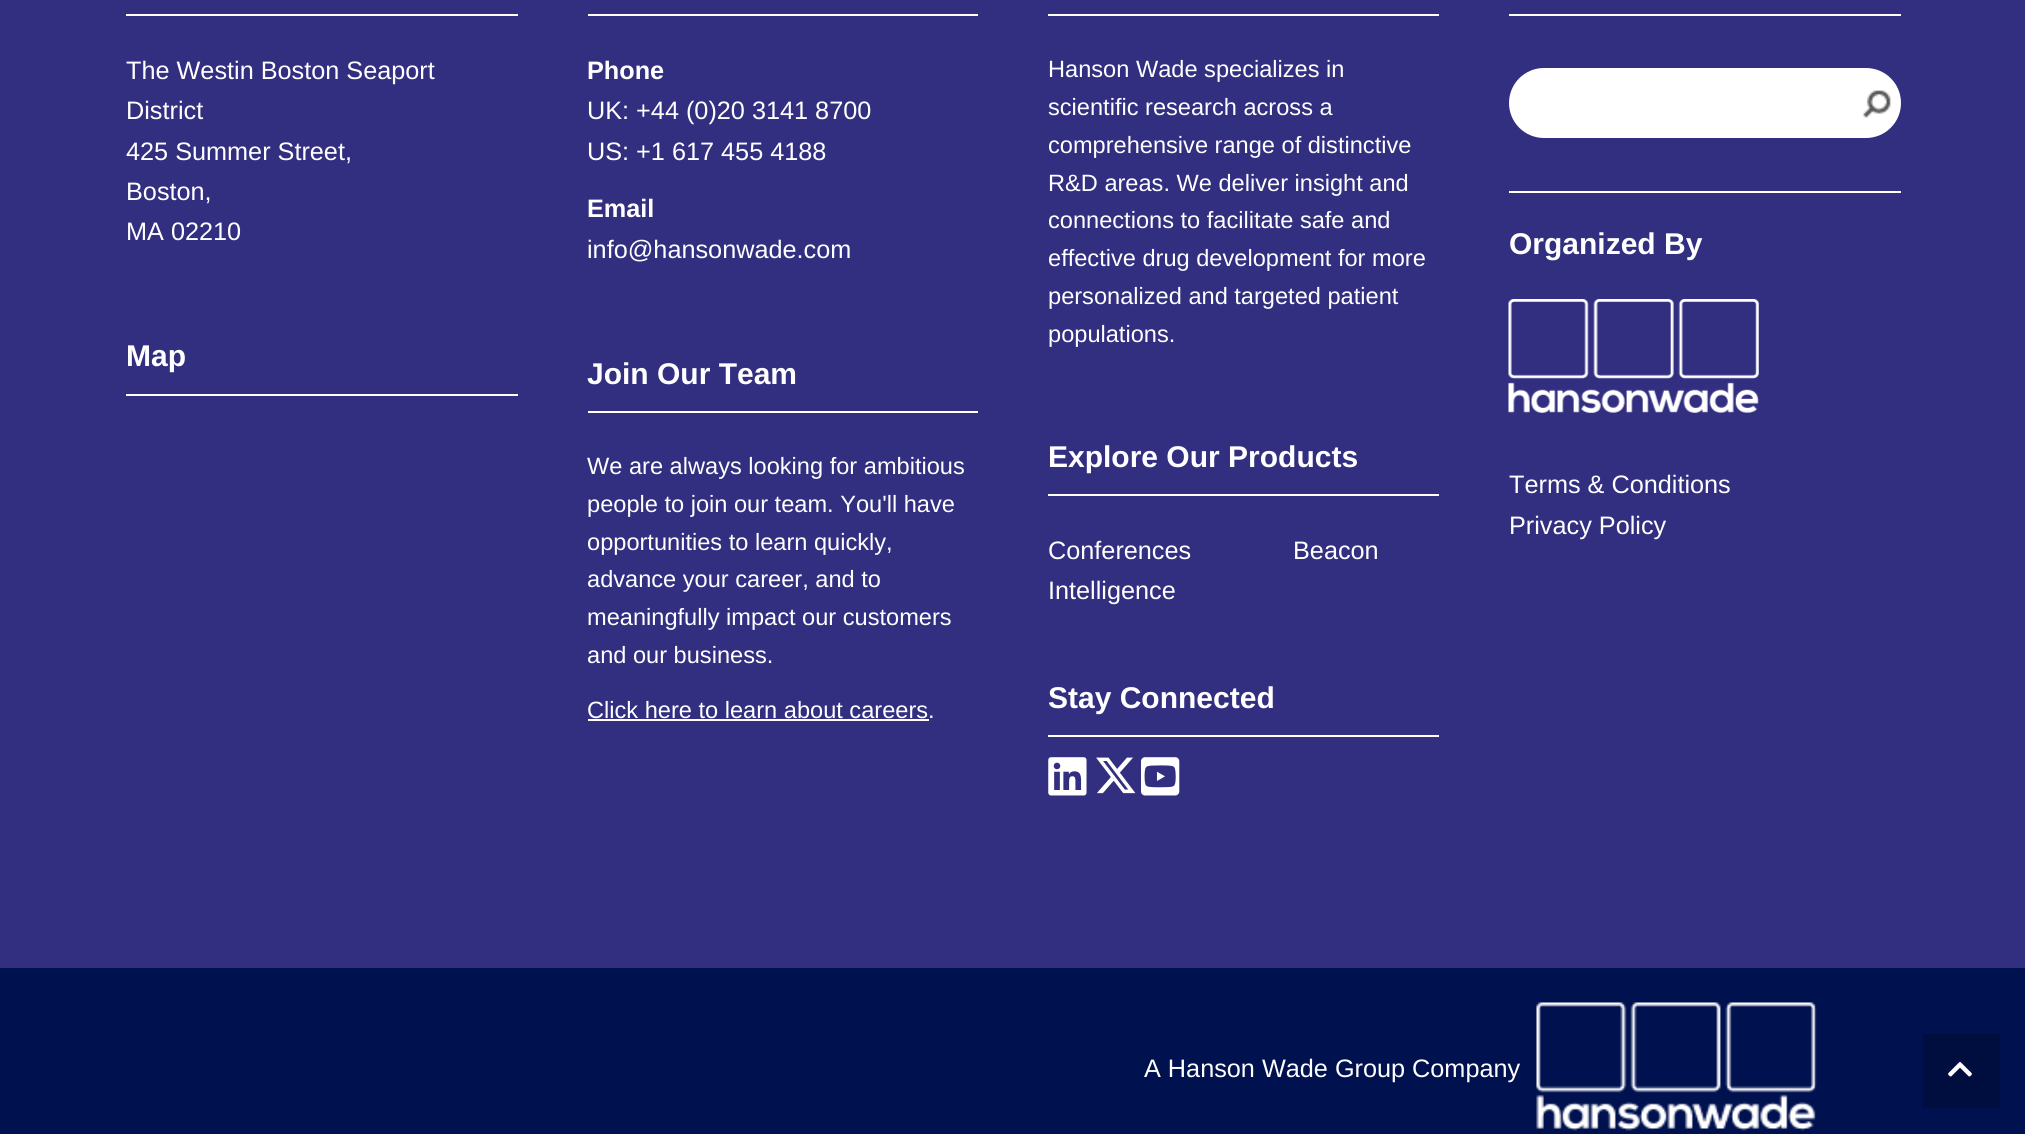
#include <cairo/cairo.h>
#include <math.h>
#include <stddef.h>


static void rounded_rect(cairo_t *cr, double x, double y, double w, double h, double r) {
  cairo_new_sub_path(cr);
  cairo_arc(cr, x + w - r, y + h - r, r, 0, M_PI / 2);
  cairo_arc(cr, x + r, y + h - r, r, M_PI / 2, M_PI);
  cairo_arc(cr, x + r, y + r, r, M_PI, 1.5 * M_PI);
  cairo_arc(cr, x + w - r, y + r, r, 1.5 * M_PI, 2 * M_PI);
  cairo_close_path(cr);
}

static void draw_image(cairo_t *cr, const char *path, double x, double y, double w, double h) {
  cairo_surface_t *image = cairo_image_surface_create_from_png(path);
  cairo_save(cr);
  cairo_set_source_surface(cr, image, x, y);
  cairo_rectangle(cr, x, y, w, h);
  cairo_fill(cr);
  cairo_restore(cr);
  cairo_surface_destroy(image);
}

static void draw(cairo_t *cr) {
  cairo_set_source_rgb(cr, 50 / 255.0, 47 / 255.0, 128 / 255.0);
  cairo_paint(cr);
  cairo_set_source_rgb(cr, 1, 1, 1);
  cairo_rectangle(cr, 126, 14, 392, 2);
  cairo_fill(cr);
  cairo_rectangle(cr, 126, 394, 392, 2);
  cairo_fill(cr);
  cairo_rectangle(cr, 588, 14, 390, 2);
  cairo_fill(cr);
  cairo_rectangle(cr, 588, 411, 390, 2);
  cairo_fill(cr);
  cairo_rectangle(cr, 588, 719, 341, 2);
  cairo_fill(cr);
  cairo_rectangle(cr, 1048, 14, 391, 2);
  cairo_fill(cr);
  cairo_rectangle(cr, 1048, 494, 391, 2);
  cairo_fill(cr);
  cairo_rectangle(cr, 1048, 735, 391, 2);
  cairo_fill(cr);
  draw_image(cr, "images/1.png", 1048, 757, 39, 39);
  draw_image(cr, "images/2.png", 1096, 757, 40, 37);
  draw_image(cr, "images/3.png", 1141, 757, 39, 39);
  cairo_rectangle(cr, 1509, 14, 392, 2);
  cairo_fill(cr);
  rounded_rect(cr, 1509, 68, 392, 70, 35);
  cairo_fill(cr);
  draw_image(cr, "images/4.png", 1863, 80, 37, 46);
  cairo_rectangle(cr, 1509, 191, 392, 2);
  cairo_fill(cr);
  draw_image(cr, "images/5.png", 1508, 299, 251, 114);
  cairo_set_source_rgb(cr, 0, 17 / 255.0, 79 / 255.0);
  cairo_rectangle(cr, 0, 968, 2025, 166);
  cairo_fill(cr);
  draw_image(cr, "images/6.png", 1536, 1002, 281, 129);
  cairo_set_source_rgb(cr, 0, 14 / 255.0, 63 / 255.0);
  cairo_rectangle(cr, 1923, 1034, 77, 74);
  cairo_fill(cr);
  draw_image(cr, "images/7.png", 1948, 1062, 24, 15);
  cairo_select_font_face(cr, "Liberation Sans", CAIRO_FONT_SLANT_NORMAL, CAIRO_FONT_WEIGHT_NORMAL);
  cairo_set_font_size(cr, 25.25);
  cairo_set_source_rgb(cr, 1, 1, 1);
  cairo_move_to(cr, 126, 79);
  cairo_show_text(cr, "The Westin Boston Seaport");
  cairo_move_to(cr, 126, 119);
  cairo_show_text(cr, "District");
  cairo_move_to(cr, 126, 160);
  cairo_show_text(cr, "425 Summer Street,");
  cairo_move_to(cr, 126, 200);
  cairo_show_text(cr, "Boston,");
  cairo_move_to(cr, 126, 240);
  cairo_show_text(cr, "MA 02210");
  cairo_select_font_face(cr, "Liberation Sans", CAIRO_FONT_SLANT_NORMAL, CAIRO_FONT_WEIGHT_BOLD);
  cairo_set_font_size(cr, 30);
  cairo_move_to(cr, 126, 366);
  cairo_show_text(cr, "Map");
  cairo_set_font_size(cr, 25.25);
  cairo_move_to(cr, 587, 79);
  cairo_show_text(cr, "Phone");
  cairo_select_font_face(cr, "Liberation Sans", CAIRO_FONT_SLANT_NORMAL, CAIRO_FONT_WEIGHT_NORMAL);
  cairo_move_to(cr, 587, 119);
  cairo_show_text(cr, "UK: +44 (0)20 3141 8700");
  cairo_move_to(cr, 587, 160);
  cairo_show_text(cr, "US: +1 617 455 4188");
  cairo_select_font_face(cr, "Liberation Sans", CAIRO_FONT_SLANT_NORMAL, CAIRO_FONT_WEIGHT_BOLD);
  cairo_move_to(cr, 587, 217);
  cairo_show_text(cr, "Email");
  cairo_select_font_face(cr, "Liberation Sans", CAIRO_FONT_SLANT_NORMAL, CAIRO_FONT_WEIGHT_NORMAL);
  cairo_move_to(cr, 587, 258);
  cairo_show_text(cr, "info@hansonwade.com");
  cairo_select_font_face(cr, "Liberation Sans", CAIRO_FONT_SLANT_NORMAL, CAIRO_FONT_WEIGHT_BOLD);
  cairo_set_font_size(cr, 30);
  cairo_move_to(cr, 587, 384);
  cairo_show_text(cr, "Join Our Team");
  cairo_select_font_face(cr, "Liberation Sans", CAIRO_FONT_SLANT_NORMAL, CAIRO_FONT_WEIGHT_NORMAL);
  cairo_set_font_size(cr, 23.6);
  cairo_move_to(cr, 587, 474);
  cairo_show_text(cr, "We are always looking for ambitious");
  cairo_move_to(cr, 587, 512);
  cairo_show_text(cr, "people to join our team. You'll have");
  cairo_move_to(cr, 587, 550);
  cairo_show_text(cr, "opportunities to learn quickly,");
  cairo_move_to(cr, 587, 587);
  cairo_show_text(cr, "advance your career, and to");
  cairo_move_to(cr, 587, 625);
  cairo_show_text(cr, "meaningfully impact our customers");
  cairo_move_to(cr, 587, 663);
  cairo_show_text(cr, "and our business.");
  cairo_move_to(cr, 587, 718);
  cairo_show_text(cr, "Click here to learn about careers.");
  cairo_move_to(cr, 1048, 77);
  cairo_show_text(cr, "Hanson Wade specializes in");
  cairo_move_to(cr, 1048, 115);
  cairo_show_text(cr, "scientific research across a");
  cairo_move_to(cr, 1048, 153);
  cairo_show_text(cr, "comprehensive range of distinctive");
  cairo_move_to(cr, 1048, 191);
  cairo_show_text(cr, "R&D areas. We deliver insight and");
  cairo_move_to(cr, 1048, 228);
  cairo_show_text(cr, "connections to facilitate safe and");
  cairo_move_to(cr, 1048, 266);
  cairo_show_text(cr, "effective drug development for more");
  cairo_move_to(cr, 1048, 304);
  cairo_show_text(cr, "personalized and targeted patient");
  cairo_move_to(cr, 1048, 342);
  cairo_show_text(cr, "populations.");
  cairo_select_font_face(cr, "Liberation Sans", CAIRO_FONT_SLANT_NORMAL, CAIRO_FONT_WEIGHT_BOLD);
  cairo_set_font_size(cr, 30);
  cairo_move_to(cr, 1048, 467);
  cairo_show_text(cr, "Explore Our Products");
  cairo_select_font_face(cr, "Liberation Sans", CAIRO_FONT_SLANT_NORMAL, CAIRO_FONT_WEIGHT_NORMAL);
  cairo_set_font_size(cr, 25.25);
  cairo_move_to(cr, 1048, 559);
  cairo_show_text(cr, "Conferences");
  cairo_move_to(cr, 1293, 559);
  cairo_show_text(cr, "Beacon");
  cairo_move_to(cr, 1048, 599);
  cairo_show_text(cr, "Intelligence");
  cairo_select_font_face(cr, "Liberation Sans", CAIRO_FONT_SLANT_NORMAL, CAIRO_FONT_WEIGHT_BOLD);
  cairo_set_font_size(cr, 30);
  cairo_move_to(cr, 1048, 708);
  cairo_show_text(cr, "Stay Connected");
  cairo_move_to(cr, 1509, 254);
  cairo_show_text(cr, "Organized By");
  cairo_select_font_face(cr, "Liberation Sans", CAIRO_FONT_SLANT_NORMAL, CAIRO_FONT_WEIGHT_NORMAL);
  cairo_set_font_size(cr, 25.25);
  cairo_move_to(cr, 1509, 493);
  cairo_show_text(cr, "Terms & Conditions");
  cairo_move_to(cr, 1509, 534);
  cairo_show_text(cr, "Privacy Policy");
  cairo_move_to(cr, 1144, 1077);
  cairo_show_text(cr, "A Hanson Wade Group Company");
}

int main(void) {
  cairo_surface_t *surface = cairo_image_surface_create(CAIRO_FORMAT_RGB24, 2025, 1134);
  cairo_t *cr = cairo_create(surface);
  cairo_font_options_t *options = cairo_font_options_create();
  cairo_font_options_set_hint_metrics(options, CAIRO_HINT_METRICS_OFF);
  cairo_font_options_set_hint_style(options, CAIRO_HINT_STYLE_NONE);
  cairo_set_font_options(cr, options);
  cairo_set_miter_limit(cr, 4);
  draw(cr);
  cairo_surface_write_to_png(surface, "out.png");
  cairo_font_options_destroy(options);
  cairo_destroy(cr);
  cairo_surface_destroy(surface);
  return 0;
}
